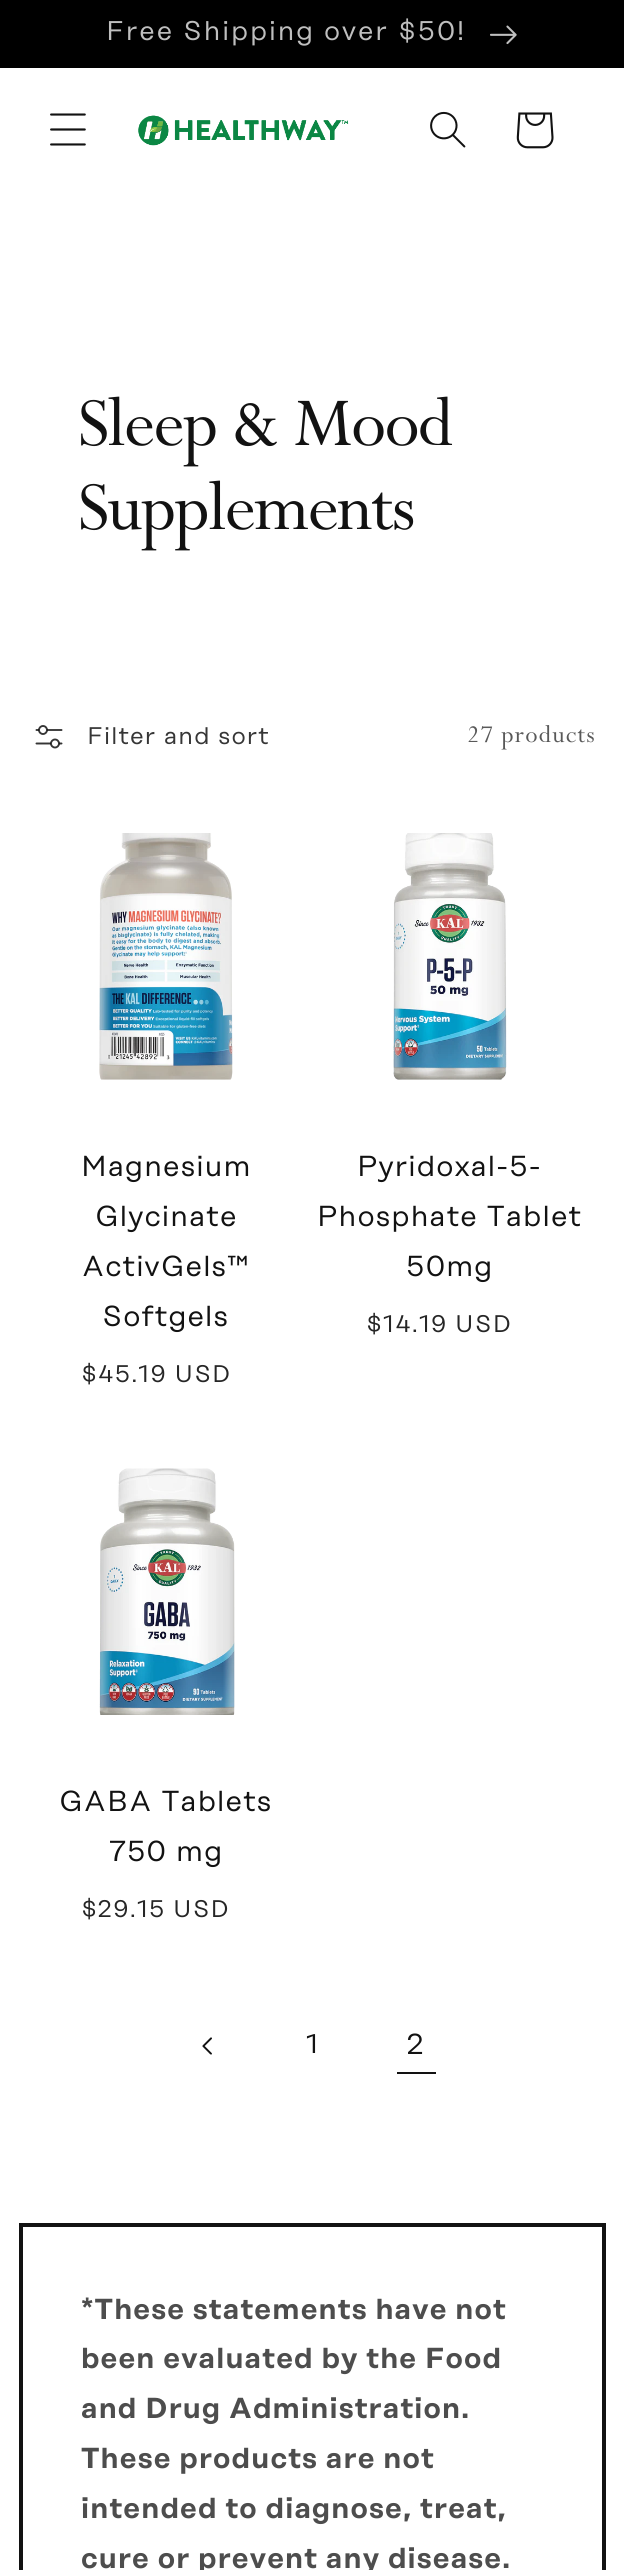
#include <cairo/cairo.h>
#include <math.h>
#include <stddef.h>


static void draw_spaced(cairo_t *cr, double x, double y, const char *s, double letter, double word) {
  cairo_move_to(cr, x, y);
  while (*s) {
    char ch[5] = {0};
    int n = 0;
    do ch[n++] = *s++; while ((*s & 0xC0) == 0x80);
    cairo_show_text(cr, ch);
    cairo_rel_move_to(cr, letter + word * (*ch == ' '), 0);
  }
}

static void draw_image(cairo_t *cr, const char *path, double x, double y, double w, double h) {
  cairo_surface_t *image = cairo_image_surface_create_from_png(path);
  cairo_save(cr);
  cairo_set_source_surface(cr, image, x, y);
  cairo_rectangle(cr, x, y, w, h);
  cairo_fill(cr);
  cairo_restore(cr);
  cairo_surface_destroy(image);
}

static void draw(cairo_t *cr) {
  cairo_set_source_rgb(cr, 1, 1, 1);
  cairo_paint(cr);
  cairo_set_source_rgb(cr, 0, 0, 0);
  cairo_rectangle(cr, 0, 0, 624, 68);
  cairo_fill(cr);
  draw_image(cr, "images/1.png", 490, 25, 27, 20);
  draw_image(cr, "images/2.png", 50, 113, 36, 33);
  draw_image(cr, "images/3.png", 138, 115, 211, 31);
  draw_image(cr, "images/4.png", 430, 111, 36, 37);
  draw_image(cr, "images/5.png", 516, 112, 38, 37);
  draw_image(cr, "images/6.png", 35, 725, 28, 24);
  draw_image(cr, "images/7.png", 99, 833, 134, 247);
  draw_image(cr, "images/8.png", 393, 833, 114, 247);
  draw_image(cr, "images/9.png", 99, 1468, 136, 247);
  draw_image(cr, "images/10.png", 202, 2037, 10, 18);
  cairo_set_source_rgb(cr, 18 / 255.0, 18 / 255.0, 18 / 255.0);
  cairo_rectangle(cr, 397, 2072, 39, 2);
  cairo_fill(cr);
  cairo_rectangle(cr, 21, 2225, 583, 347);
  cairo_set_line_width(cr, 4);
  cairo_stroke(cr);
  cairo_select_font_face(cr, "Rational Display", CAIRO_FONT_SLANT_NORMAL, CAIRO_FONT_WEIGHT_NORMAL);
  cairo_set_font_size(cr, 27);
  cairo_set_source_rgb(cr, 191 / 255.0, 191 / 255.0, 191 / 255.0);
  draw_spaced(cr, 106, 40, "Free Shipping over $50!", 1.9, 0);
  cairo_select_font_face(cr, "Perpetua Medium", CAIRO_FONT_SLANT_NORMAL, CAIRO_FONT_WEIGHT_NORMAL);
  cairo_set_font_size(cr, 77);
  cairo_set_source_rgb(cr, 18 / 255.0, 18 / 255.0, 18 / 255.0);
  draw_spaced(cr, 77, 445, "Sleep & Mood", -1.75, 0);
  draw_spaced(cr, 77, 529, "Supplements", -1.75, 0);
  cairo_select_font_face(cr, "Rational Display", CAIRO_FONT_SLANT_NORMAL, CAIRO_FONT_WEIGHT_NORMAL);
  cairo_set_font_size(cr, 24);
  cairo_set_source_rgb(cr, 54 / 255.0, 54 / 255.0, 54 / 255.0);
  draw_spaced(cr, 87, 744, "Filter and sort", 1.15, 0);
  cairo_select_font_face(cr, "Perpetua Medium", CAIRO_FONT_SLANT_NORMAL, CAIRO_FONT_WEIGHT_NORMAL);
  cairo_set_font_size(cr, 27);
  cairo_set_source_rgb(cr, 89 / 255.0, 89 / 255.0, 89 / 255.0);
  draw_spaced(cr, 467, 742, "27 products", 1.15, 0);
  cairo_select_font_face(cr, "Rational Display", CAIRO_FONT_SLANT_NORMAL, CAIRO_FONT_WEIGHT_NORMAL);
  cairo_set_font_size(cr, 28.9);
  cairo_set_source_rgb(cr, 18 / 255.0, 18 / 255.0, 18 / 255.0);
  draw_spaced(cr, 81, 1176, "Magnesium", 1.15, 0);
  draw_spaced(cr, 95, 1226, "Glycinate", 1.15, 0);
  draw_spaced(cr, 82, 1276, "ActivGels™", 1.15, 0);
  draw_spaced(cr, 102, 1326, "Softgels", 1.15, 0);
  cairo_set_font_size(cr, 24);
  cairo_set_source_rgb(cr, 38 / 255.0, 38 / 255.0, 38 / 255.0);
  draw_spaced(cr, 81, 1382, "$45.19 USD", 1.15, 0);
  cairo_set_font_size(cr, 28.9);
  cairo_set_source_rgb(cr, 18 / 255.0, 18 / 255.0, 18 / 255.0);
  draw_spaced(cr, 357, 1176, "Pyridoxal-5-", 1.15, 0);
  draw_spaced(cr, 317, 1226, "Phosphate Tablet", 1.15, 0);
  draw_spaced(cr, 406, 1276, "50mg", 1.15, 0);
  cairo_set_font_size(cr, 24);
  cairo_set_source_rgb(cr, 38 / 255.0, 38 / 255.0, 38 / 255.0);
  draw_spaced(cr, 366, 1332, "$14.19 USD", 1.15, 0);
  cairo_set_font_size(cr, 28.9);
  cairo_set_source_rgb(cr, 18 / 255.0, 18 / 255.0, 18 / 255.0);
  draw_spaced(cr, 59, 1811, "GABA Tablets", 1.15, 0);
  draw_spaced(cr, 109, 1861, "750 mg", 1.15, 0);
  cairo_set_font_size(cr, 24);
  cairo_set_source_rgb(cr, 38 / 255.0, 38 / 255.0, 38 / 255.0);
  draw_spaced(cr, 81, 1917, "$29.15 USD", 1.15, 0);
  cairo_set_font_size(cr, 27);
  cairo_set_source_rgb(cr, 18 / 255.0, 18 / 255.0, 18 / 255.0);
  draw_spaced(cr, 306, 2053, "1", 1.15, 0);
  cairo_set_font_size(cr, 28.9);
  draw_spaced(cr, 407, 2054, "2", 1.15, 0);
  cairo_select_font_face(cr, "Rational Display SemiBold", CAIRO_FONT_SLANT_NORMAL, CAIRO_FONT_WEIGHT_NORMAL);
  cairo_set_source_rgb(cr, 77 / 255.0, 77 / 255.0, 77 / 255.0);
  draw_spaced(cr, 81, 2319, "*These statements have not", 1.15, 0);
  draw_spaced(cr, 81, 2368, "been evaluated by the Food", 1.15, 0);
  draw_spaced(cr, 81, 2418, "and Drug Administration.", 1.15, 0);
  draw_spaced(cr, 81, 2468, "These products are not", 1.15, 0);
  draw_spaced(cr, 81, 2518, "intended to diagnose, treat,", 1.15, 0);
  draw_spaced(cr, 81, 2568, "cure or prevent any disease.", 1.15, 0);
}

int main(void) {
  cairo_surface_t *surface = cairo_image_surface_create(CAIRO_FORMAT_RGB24, 624, 2570);
  cairo_t *cr = cairo_create(surface);
  cairo_font_options_t *options = cairo_font_options_create();
  cairo_font_options_set_hint_metrics(options, CAIRO_HINT_METRICS_OFF);
  cairo_font_options_set_hint_style(options, CAIRO_HINT_STYLE_NONE);
  cairo_set_font_options(cr, options);
  cairo_set_miter_limit(cr, 4);
  draw(cr);
  cairo_surface_write_to_png(surface, "out.png");
  cairo_font_options_destroy(options);
  cairo_destroy(cr);
  cairo_surface_destroy(surface);
  return 0;
}
